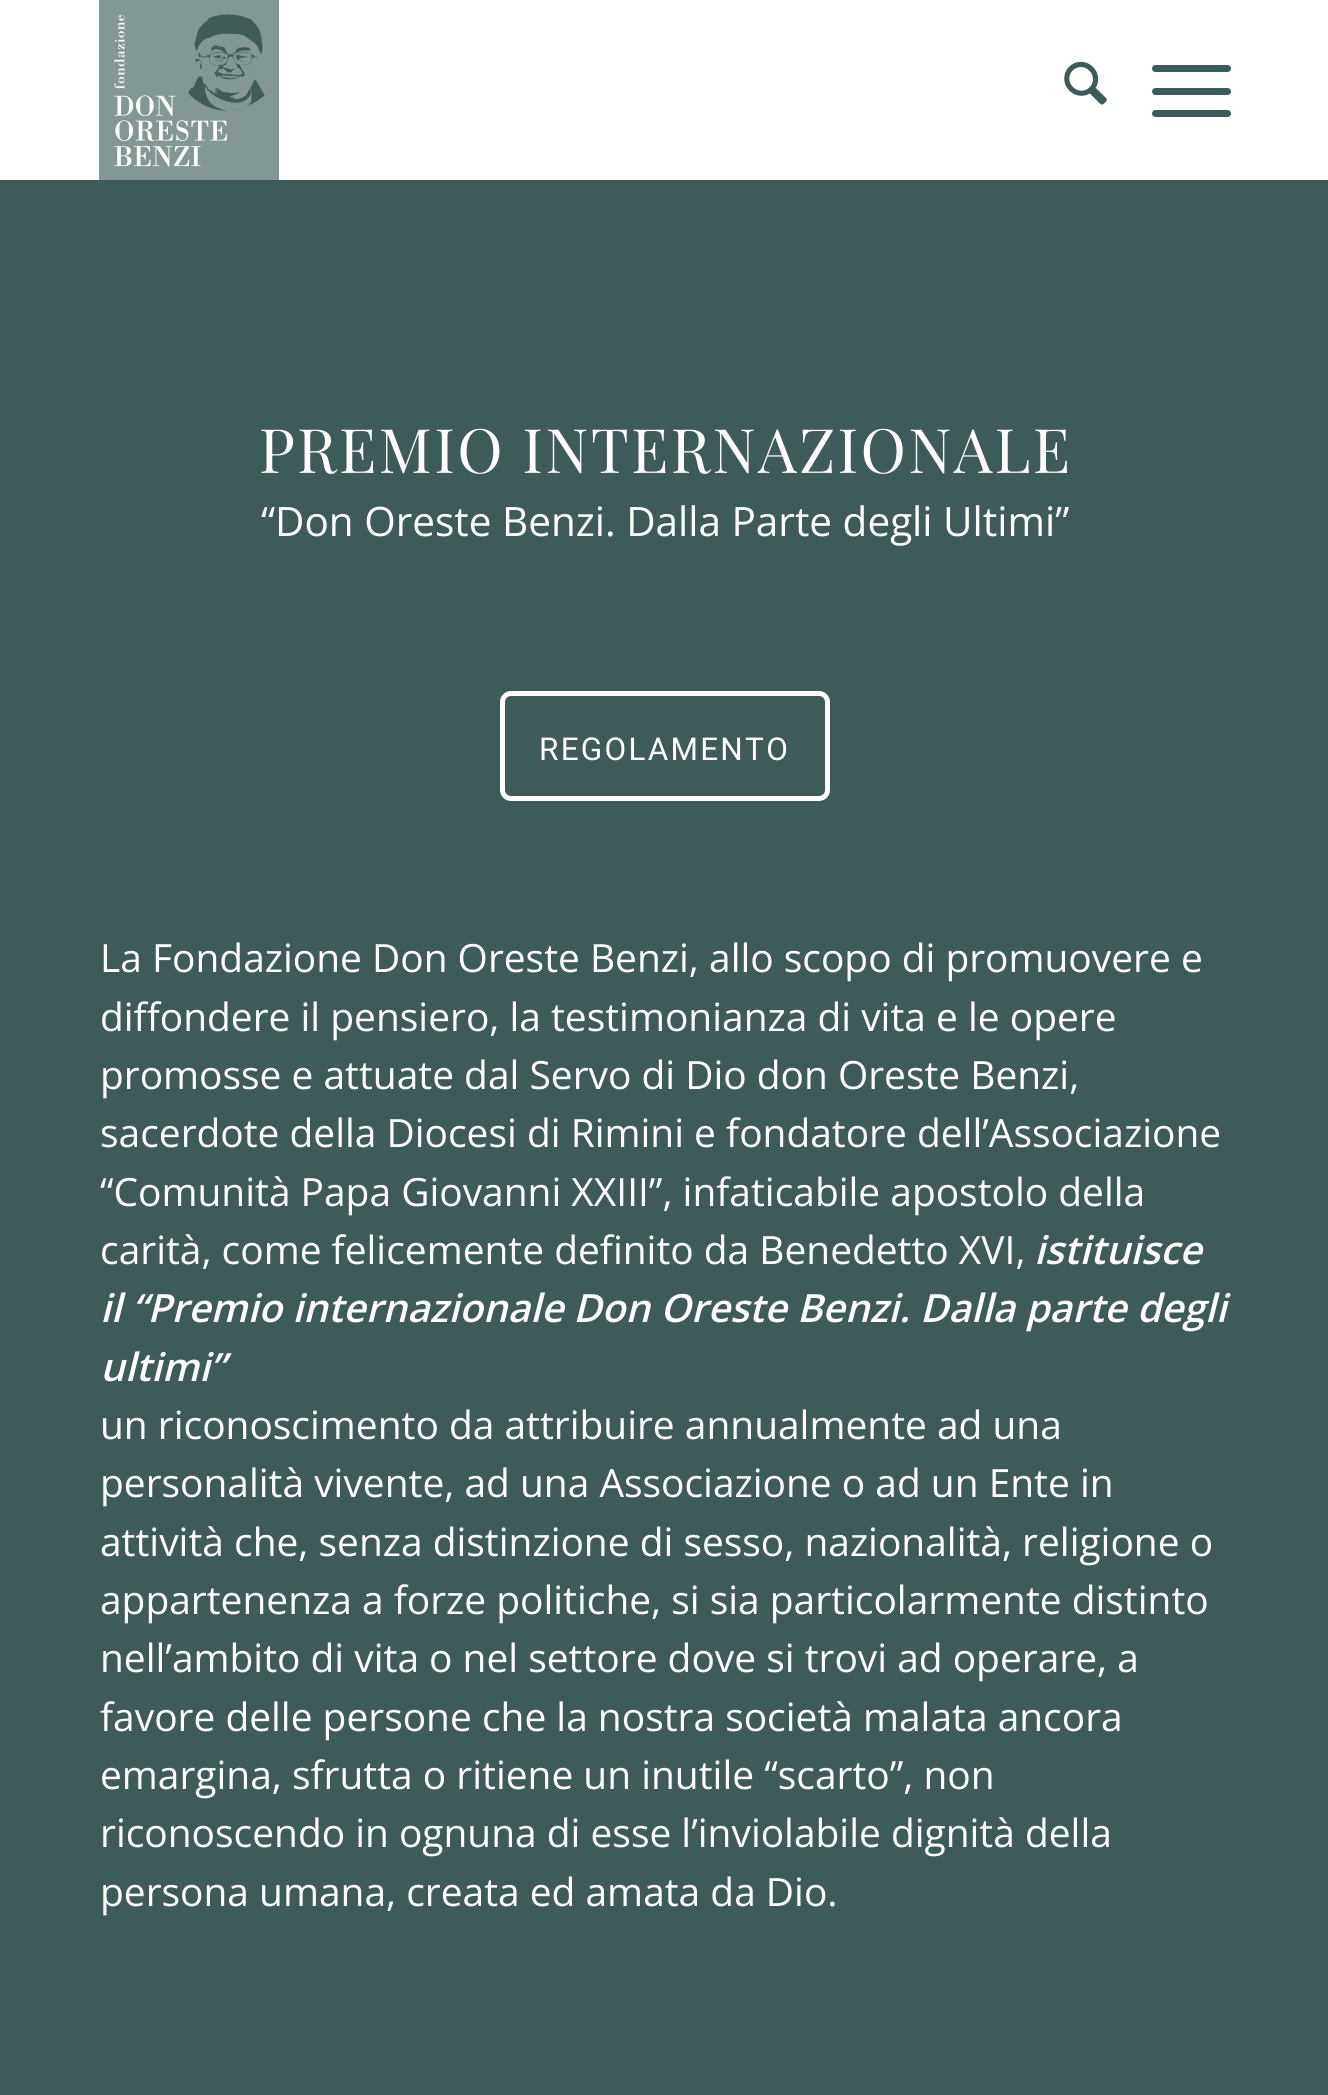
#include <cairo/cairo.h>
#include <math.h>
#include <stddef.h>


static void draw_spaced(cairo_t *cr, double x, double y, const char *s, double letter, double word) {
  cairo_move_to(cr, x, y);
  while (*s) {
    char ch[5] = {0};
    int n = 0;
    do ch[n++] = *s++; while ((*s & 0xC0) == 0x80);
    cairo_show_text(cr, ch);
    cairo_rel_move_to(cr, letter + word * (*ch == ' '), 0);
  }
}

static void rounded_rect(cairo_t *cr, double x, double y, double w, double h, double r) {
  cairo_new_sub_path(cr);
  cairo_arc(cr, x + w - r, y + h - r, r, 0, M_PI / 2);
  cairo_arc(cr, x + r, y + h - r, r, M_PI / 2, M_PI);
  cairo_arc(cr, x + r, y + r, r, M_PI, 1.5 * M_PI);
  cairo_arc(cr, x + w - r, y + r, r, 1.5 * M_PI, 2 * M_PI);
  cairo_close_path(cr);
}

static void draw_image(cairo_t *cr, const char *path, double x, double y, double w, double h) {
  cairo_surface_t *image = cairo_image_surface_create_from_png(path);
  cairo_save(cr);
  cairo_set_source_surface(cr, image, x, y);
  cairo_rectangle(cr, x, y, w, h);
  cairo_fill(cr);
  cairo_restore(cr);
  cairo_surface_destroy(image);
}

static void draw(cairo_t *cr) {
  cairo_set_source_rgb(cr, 1, 1, 1);
  cairo_paint(cr);
  draw_image(cr, "images/1.png", 99, 0, 180, 180);
  draw_image(cr, "images/2.png", 1064, 61, 43, 44);
  cairo_set_source_rgb(cr, 60 / 255.0, 91 / 255.0, 89 / 255.0);
  rounded_rect(cr, 1152, 88, 79, 7, 3.5);
  cairo_fill(cr);
  rounded_rect(cr, 1152, 65, 79, 7, 3.5);
  cairo_fill(cr);
  rounded_rect(cr, 1152, 110, 79, 7, 3.5);
  cairo_fill(cr);
  cairo_rectangle(cr, 0, 180, 1328, 1915);
  cairo_fill(cr);
  rounded_rect(cr, 502.5, 693.5, 325, 105, 8.5);
  cairo_set_source_rgb(cr, 1, 1, 1);
  cairo_set_line_width(cr, 5);
  cairo_stroke(cr);
  cairo_select_font_face(cr, "Playfair Display", CAIRO_FONT_SLANT_NORMAL, CAIRO_FONT_WEIGHT_NORMAL);
  cairo_set_font_size(cr, 61.25);
  draw_spaced(cr, 259, 473, "PREMIO INTERNAZIONALE", 2.25, 0);
  cairo_select_font_face(cr, "Open Sans", CAIRO_FONT_SLANT_NORMAL, CAIRO_FONT_WEIGHT_NORMAL);
  cairo_set_font_size(cr, 40.5);
  cairo_move_to(cr, 261, 536);
  cairo_show_text(cr, "“Don Oreste Benzi. Dalla Parte degli Ultimi”");
  cairo_select_font_face(cr, "Roboto", CAIRO_FONT_SLANT_NORMAL, CAIRO_FONT_WEIGHT_NORMAL);
  cairo_set_font_size(cr, 31.5);
  draw_spaced(cr, 539, 760, "REGOLAMENTO", 2.25, 0);
  cairo_select_font_face(cr, "Open Sans", CAIRO_FONT_SLANT_NORMAL, CAIRO_FONT_WEIGHT_NORMAL);
  cairo_set_font_size(cr, 38.9);
  cairo_move_to(cr, 100, 972);
  cairo_show_text(cr, "La Fondazione Don Oreste Benzi, allo scopo di promuovere e");
  cairo_move_to(cr, 100, 1031);
  cairo_show_text(cr, "diffondere il pensiero, la testimonianza di vita e le opere");
  cairo_move_to(cr, 100, 1089);
  cairo_show_text(cr, "promosse e attuate dal Servo di Dio don Oreste Benzi,");
  cairo_move_to(cr, 100, 1147);
  cairo_show_text(cr, "sacerdote della Diocesi di Rimini e fondatore dell’Associazione");
  cairo_move_to(cr, 100, 1206);
  cairo_show_text(cr, "“Comunità Papa Giovanni XXIII”, infaticabile apostolo della");
  cairo_move_to(cr, 100, 1264);
  cairo_show_text(cr, "carità, come felicemente definito da Benedetto XVI,");
  cairo_select_font_face(cr, "Open Sans SemiBold", CAIRO_FONT_SLANT_ITALIC, CAIRO_FONT_WEIGHT_NORMAL);
  cairo_move_to(cr, 1034, 1264);
  cairo_show_text(cr, "istituisce");
  cairo_move_to(cr, 100, 1322);
  cairo_show_text(cr, "il “Premio internazionale");
  cairo_move_to(cr, 573, 1322);
  cairo_show_text(cr, "Don Oreste Benzi. Dalla parte degli");
  cairo_move_to(cr, 100, 1381);
  cairo_show_text(cr, "ultimi”");
  cairo_select_font_face(cr, "Open Sans", CAIRO_FONT_SLANT_NORMAL, CAIRO_FONT_WEIGHT_NORMAL);
  cairo_move_to(cr, 100, 1439);
  cairo_show_text(cr, "un riconoscimento da attribuire annualmente ad una");
  cairo_move_to(cr, 100, 1497);
  cairo_show_text(cr, "personalità vivente, ad una Associazione o ad un Ente in");
  cairo_move_to(cr, 100, 1556);
  cairo_show_text(cr, "attività che, senza distinzione di sesso, nazionalità, religione o");
  cairo_move_to(cr, 100, 1614);
  cairo_show_text(cr, "appartenenza a forze politiche, si sia particolarmente distinto");
  cairo_move_to(cr, 100, 1672);
  cairo_show_text(cr, "nell’ambito di vita o nel settore dove si trovi ad operare, a");
  cairo_move_to(cr, 100, 1731);
  cairo_show_text(cr, "favore delle persone che la nostra società malata ancora");
  cairo_move_to(cr, 100, 1789);
  cairo_show_text(cr, "emargina, sfrutta o ritiene un inutile “scarto”, non");
  cairo_move_to(cr, 100, 1847);
  cairo_show_text(cr, "riconoscendo in ognuna di esse l’inviolabile dignità della");
  cairo_move_to(cr, 100, 1906);
  cairo_show_text(cr, "persona umana, creata ed amata da Dio.");
}

int main(void) {
  cairo_surface_t *surface = cairo_image_surface_create(CAIRO_FORMAT_RGB24, 1328, 2095);
  cairo_t *cr = cairo_create(surface);
  cairo_font_options_t *options = cairo_font_options_create();
  cairo_font_options_set_hint_metrics(options, CAIRO_HINT_METRICS_OFF);
  cairo_font_options_set_hint_style(options, CAIRO_HINT_STYLE_NONE);
  cairo_set_font_options(cr, options);
  cairo_set_miter_limit(cr, 4);
  draw(cr);
  cairo_surface_write_to_png(surface, "out.png");
  cairo_font_options_destroy(options);
  cairo_destroy(cr);
  cairo_surface_destroy(surface);
  return 0;
}
